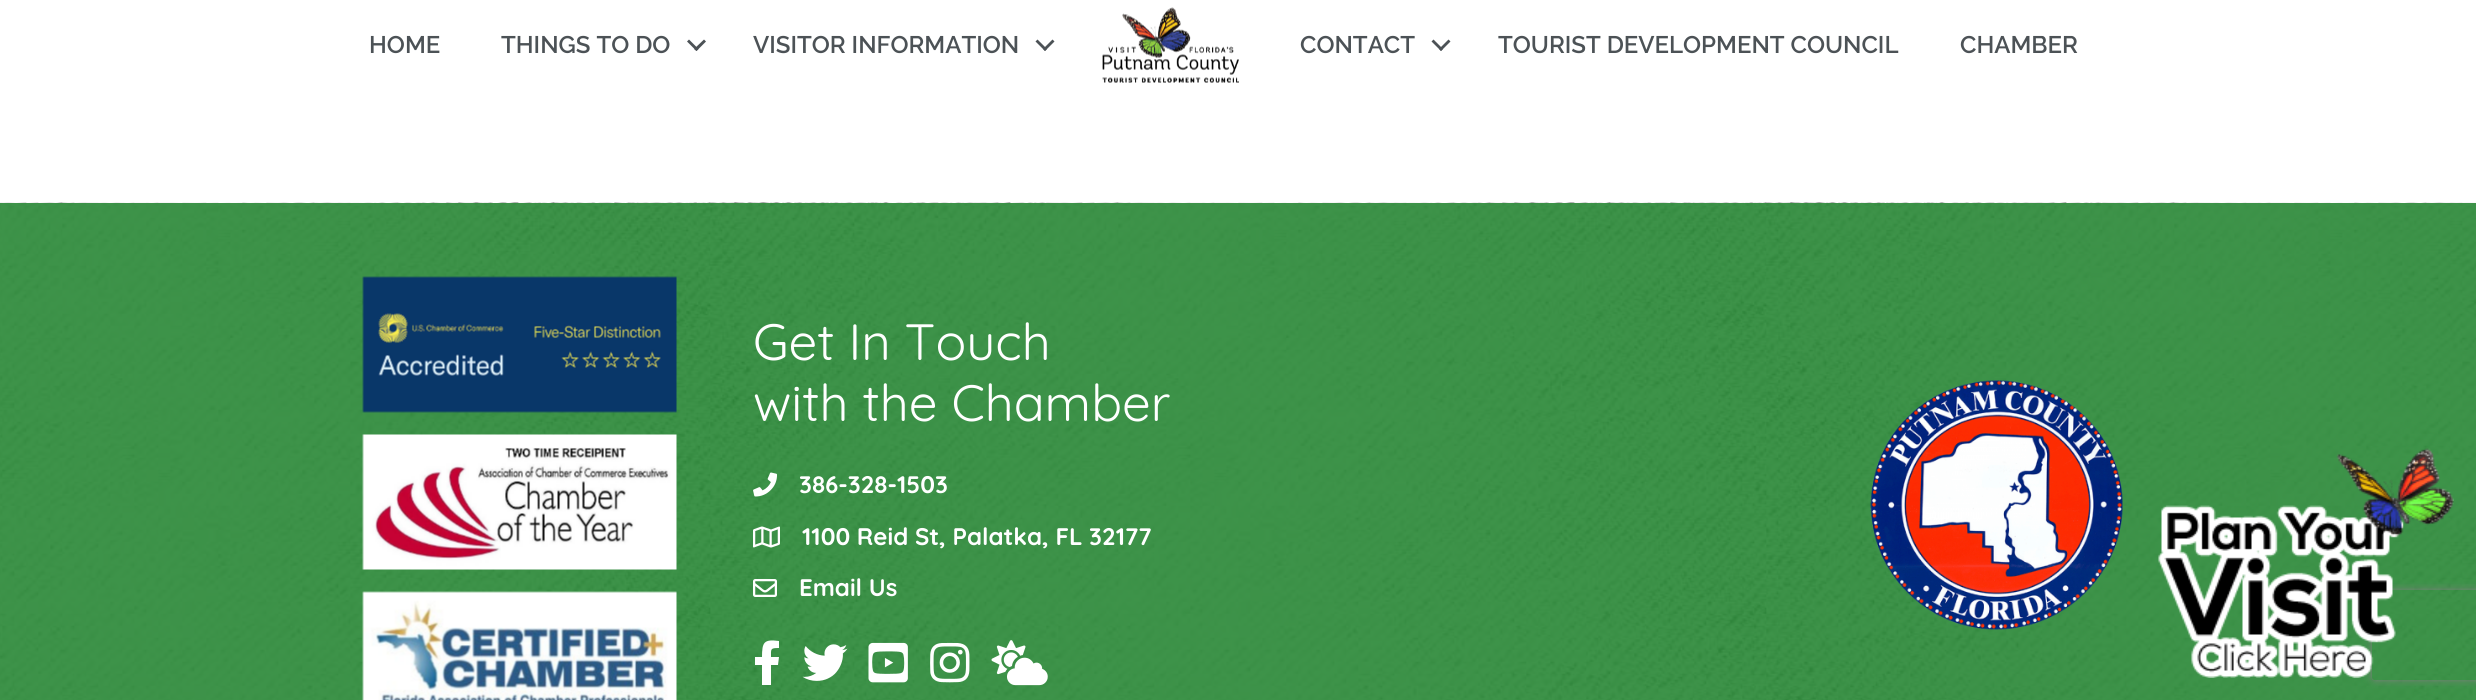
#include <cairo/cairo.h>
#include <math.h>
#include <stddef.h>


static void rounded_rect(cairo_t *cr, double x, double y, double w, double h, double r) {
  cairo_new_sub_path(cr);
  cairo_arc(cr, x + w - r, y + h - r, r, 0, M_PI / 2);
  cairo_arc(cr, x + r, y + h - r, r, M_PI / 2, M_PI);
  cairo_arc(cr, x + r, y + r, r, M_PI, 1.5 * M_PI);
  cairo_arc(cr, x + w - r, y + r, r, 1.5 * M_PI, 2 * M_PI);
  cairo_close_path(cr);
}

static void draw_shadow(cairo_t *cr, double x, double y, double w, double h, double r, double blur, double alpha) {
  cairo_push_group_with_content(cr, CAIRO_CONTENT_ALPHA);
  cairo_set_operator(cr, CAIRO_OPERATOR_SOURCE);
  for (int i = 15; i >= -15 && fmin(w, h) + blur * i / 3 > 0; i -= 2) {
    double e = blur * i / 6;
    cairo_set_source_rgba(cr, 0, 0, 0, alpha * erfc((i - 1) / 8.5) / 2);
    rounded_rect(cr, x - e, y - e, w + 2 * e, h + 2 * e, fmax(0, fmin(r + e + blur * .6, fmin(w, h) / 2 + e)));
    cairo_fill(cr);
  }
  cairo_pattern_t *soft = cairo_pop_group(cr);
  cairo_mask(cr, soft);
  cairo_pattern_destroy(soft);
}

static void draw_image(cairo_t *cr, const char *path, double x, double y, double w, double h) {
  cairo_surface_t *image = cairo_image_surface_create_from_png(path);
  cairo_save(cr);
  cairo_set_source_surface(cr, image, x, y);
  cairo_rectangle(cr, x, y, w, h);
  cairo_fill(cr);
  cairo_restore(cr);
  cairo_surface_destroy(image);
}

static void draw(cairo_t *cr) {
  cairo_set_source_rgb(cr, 1, 1, 1);
  cairo_paint(cr);
  cairo_set_source_rgb(cr, 76 / 255.0, 82 / 255.0, 86 / 255.0);
  cairo_new_path(cr);
  cairo_move_to(cr, 704, 39.5);
  cairo_line_to(cr, 706, 41.5);
  cairo_line_to(cr, 696.5, 51);
  cairo_line_to(cr, 694, 49);
  cairo_close_path(cr);
  cairo_fill(cr);
  cairo_new_path(cr);
  cairo_move_to(cr, 689, 39.5);
  cairo_line_to(cr, 698.5, 49);
  cairo_line_to(cr, 696.5, 51);
  cairo_line_to(cr, 687, 41.5);
  cairo_close_path(cr);
  cairo_fill(cr);
  cairo_new_path(cr);
  cairo_move_to(cr, 1052.5, 39.5);
  cairo_line_to(cr, 1054.5, 41.5);
  cairo_line_to(cr, 1045, 51);
  cairo_line_to(cr, 1043, 49);
  cairo_close_path(cr);
  cairo_fill(cr);
  cairo_new_path(cr);
  cairo_move_to(cr, 1037.5, 39.5);
  cairo_line_to(cr, 1047, 49);
  cairo_line_to(cr, 1045, 51);
  cairo_line_to(cr, 1035.5, 41.5);
  cairo_close_path(cr);
  cairo_fill(cr);
  draw_image(cr, "images/1.png", 1102, 7, 137, 76);
  cairo_new_path(cr);
  cairo_move_to(cr, 1448.5, 39.5);
  cairo_line_to(cr, 1450.5, 41.5);
  cairo_line_to(cr, 1441, 51);
  cairo_line_to(cr, 1439, 49);
  cairo_close_path(cr);
  cairo_fill(cr);
  cairo_new_path(cr);
  cairo_move_to(cr, 1433.5, 39.5);
  cairo_line_to(cr, 1443, 49);
  cairo_line_to(cr, 1441, 51);
  cairo_line_to(cr, 1431.5, 41.5);
  cairo_close_path(cr);
  cairo_fill(cr);
  draw_image(cr, "images/2.png", 0, 202, 2476, 498);
  draw_image(cr, "images/3.png", 362, 276, 315, 137);
  draw_image(cr, "images/4.png", 362, 434, 315, 136);
  draw_image(cr, "images/5.png", 362, 591, 315, 109);
  draw_image(cr, "images/6.png", 753, 472, 24, 25);
  draw_image(cr, "images/7.png", 753, 526, 27, 22);
  draw_image(cr, "images/8.png", 753, 579, 24, 18);
  cairo_set_source_rgb(cr, 1, 1, 1);
  cairo_new_path(cr);
  cairo_move_to(cr, 778, 665);
  cairo_line_to(cr, 771, 665);
  cairo_line_to(cr, 771, 685);
  cairo_line_to(cr, 762, 685);
  cairo_line_to(cr, 762, 665);
  cairo_line_to(cr, 755, 665);
  cairo_line_to(cr, 755, 657);
  cairo_line_to(cr, 762, 657);
  cairo_curve_to(cr, 762, 642, 764, 639, 779, 641);
  cairo_line_to(cr, 779, 648);
  cairo_curve_to(cr, 770, 648, 771, 649, 771, 657);
  cairo_line_to(cr, 779, 657);
  cairo_close_path(cr);
  cairo_fill(cr);
  draw_image(cr, "images/9.png", 802, 644, 46, 37);
  draw_image(cr, "images/10.png", 868, 642, 40, 41);
  draw_image(cr, "images/11.png", 930, 642, 40, 41);
  draw_image(cr, "images/12.png", 991, 640, 57, 46);
  draw_image(cr, "images/13.png", 1870, 380, 253, 250);
  cairo_save(cr);
  cairo_set_fill_rule(cr, CAIRO_FILL_RULE_EVEN_ODD);
  cairo_new_path(cr);
  cairo_move_to(cr, 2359, 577);
  cairo_line_to(cr, 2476, 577);
  cairo_line_to(cr, 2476, 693);
  cairo_line_to(cr, 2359, 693);
  cairo_close_path(cr);
  cairo_move_to(cr, 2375, 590);
  cairo_line_to(cr, 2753, 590);
  cairo_curve_to(cr, 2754.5, 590, 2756, 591.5, 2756, 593);
  cairo_line_to(cr, 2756, 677);
  cairo_curve_to(cr, 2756, 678.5, 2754.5, 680, 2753, 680);
  cairo_line_to(cr, 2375, 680);
  cairo_curve_to(cr, 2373.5, 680, 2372, 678.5, 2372, 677);
  cairo_line_to(cr, 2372, 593);
  cairo_curve_to(cr, 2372, 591.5, 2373.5, 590, 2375, 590);
  cairo_close_path(cr);
  cairo_clip(cr);
  cairo_set_source_rgb(cr, 128 / 255.0, 128 / 255.0, 128 / 255.0);
  draw_shadow(cr, 2372, 590, 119, 90, 3, 4, 1);
  cairo_restore(cr);
  draw_image(cr, "images/14.png", 2158, 448, 296, 230);
  cairo_select_font_face(cr, "Raleway Thin", CAIRO_FONT_SLANT_NORMAL, CAIRO_FONT_WEIGHT_NORMAL);
  cairo_set_font_size(cr, 24);
  cairo_set_source_rgb(cr, 76 / 255.0, 82 / 255.0, 86 / 255.0);
  cairo_move_to(cr, 369, 53);
  cairo_show_text(cr, "HOME");
  cairo_move_to(cr, 501, 53);
  cairo_show_text(cr, "THINGS TO DO");
  cairo_move_to(cr, 753, 53);
  cairo_show_text(cr, "VISITOR INFORMATION");
  cairo_move_to(cr, 1300, 53);
  cairo_show_text(cr, "CONTACT");
  cairo_move_to(cr, 1498, 53);
  cairo_show_text(cr, "TOURIST DEVELOPMENT COUNCIL");
  cairo_move_to(cr, 1960, 53);
  cairo_show_text(cr, "CHAMBER");
  cairo_select_font_face(cr, "Quicksand", CAIRO_FONT_SLANT_NORMAL, CAIRO_FONT_WEIGHT_NORMAL);
  cairo_set_font_size(cr, 51);
  cairo_set_source_rgb(cr, 1, 1, 1);
  cairo_move_to(cr, 753, 360);
  cairo_show_text(cr, "Get In Touch");
  cairo_move_to(cr, 753, 421);
  cairo_show_text(cr, "with the Chamber");
  cairo_select_font_face(cr, "Quicksand", CAIRO_FONT_SLANT_NORMAL, CAIRO_FONT_WEIGHT_BOLD);
  cairo_set_font_size(cr, 24);
  cairo_move_to(cr, 799, 493);
  cairo_show_text(cr, "386-328-1503");
  cairo_move_to(cr, 802, 545);
  cairo_show_text(cr, "1100 Reid St, Palatka, FL 32177");
  cairo_move_to(cr, 799, 596);
  cairo_show_text(cr, "Email Us");
}

int main(void) {
  cairo_surface_t *surface = cairo_image_surface_create(CAIRO_FORMAT_RGB24, 2476, 700);
  cairo_t *cr = cairo_create(surface);
  cairo_font_options_t *options = cairo_font_options_create();
  cairo_font_options_set_hint_metrics(options, CAIRO_HINT_METRICS_OFF);
  cairo_font_options_set_hint_style(options, CAIRO_HINT_STYLE_NONE);
  cairo_set_font_options(cr, options);
  cairo_set_miter_limit(cr, 4);
  draw(cr);
  cairo_surface_write_to_png(surface, "out.png");
  cairo_font_options_destroy(options);
  cairo_destroy(cr);
  cairo_surface_destroy(surface);
  return 0;
}
